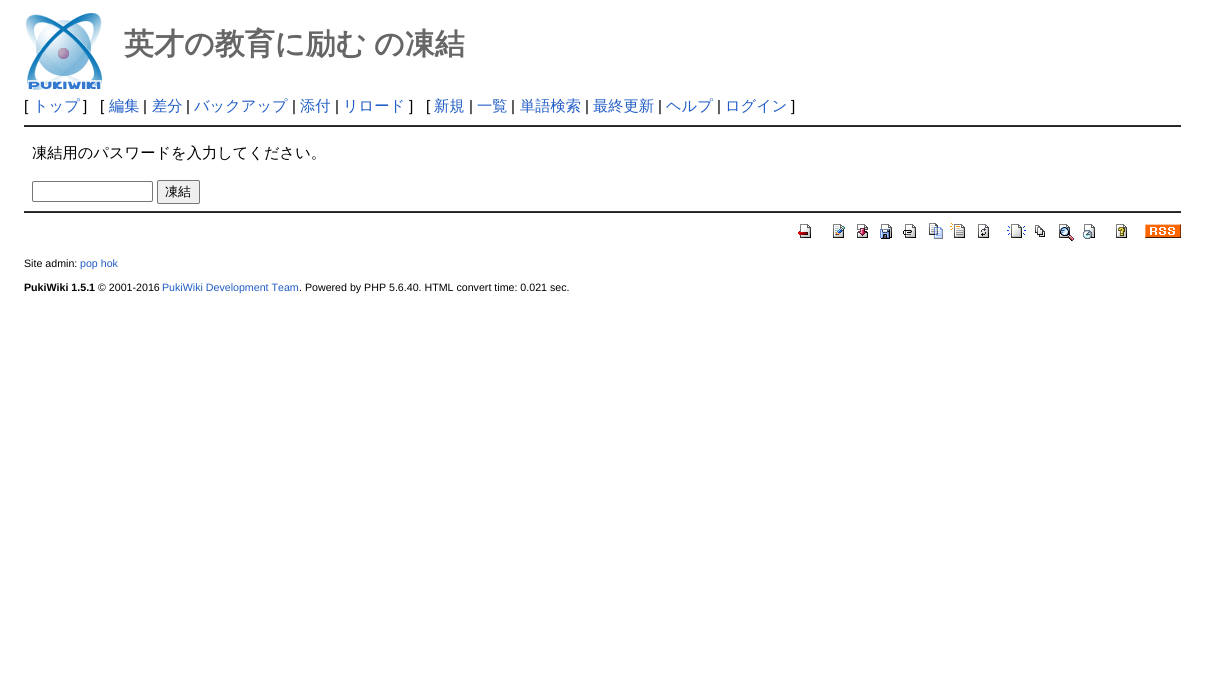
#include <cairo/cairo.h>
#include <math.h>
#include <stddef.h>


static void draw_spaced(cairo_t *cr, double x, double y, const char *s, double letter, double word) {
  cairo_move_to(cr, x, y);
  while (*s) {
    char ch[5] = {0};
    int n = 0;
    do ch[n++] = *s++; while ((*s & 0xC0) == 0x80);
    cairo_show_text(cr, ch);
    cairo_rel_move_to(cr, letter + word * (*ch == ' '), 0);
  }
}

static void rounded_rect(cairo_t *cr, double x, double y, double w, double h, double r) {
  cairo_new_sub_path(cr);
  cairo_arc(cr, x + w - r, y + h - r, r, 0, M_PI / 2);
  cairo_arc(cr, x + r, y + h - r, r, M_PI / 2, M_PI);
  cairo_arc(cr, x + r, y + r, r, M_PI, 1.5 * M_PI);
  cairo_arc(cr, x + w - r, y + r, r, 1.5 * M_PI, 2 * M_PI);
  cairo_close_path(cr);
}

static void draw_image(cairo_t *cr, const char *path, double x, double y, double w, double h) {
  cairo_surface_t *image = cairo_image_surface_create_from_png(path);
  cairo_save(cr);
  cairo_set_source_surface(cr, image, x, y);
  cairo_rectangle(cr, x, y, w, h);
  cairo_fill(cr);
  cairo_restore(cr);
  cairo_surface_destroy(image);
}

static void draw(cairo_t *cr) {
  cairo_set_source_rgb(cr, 1, 1, 1);
  cairo_paint(cr);
  draw_image(cr, "images/1.png", 26, 13, 76, 77);
  cairo_set_source_rgb(cr, 51 / 255.0, 51 / 255.0, 51 / 255.0);
  cairo_rectangle(cr, 24, 125, 1157, 1);
  cairo_fill(cr);
  cairo_set_source_rgb(cr, 34 / 255.0, 34 / 255.0, 34 / 255.0);
  cairo_rectangle(cr, 24, 126, 1157, 1);
  cairo_fill(cr);
  rounded_rect(cr, 32.5, 181.5, 120, 20, 1.5);
  cairo_set_source_rgb(cr, 118 / 255.0, 118 / 255.0, 118 / 255.0);
  cairo_set_line_width(cr, 1);
  cairo_stroke(cr);
  cairo_set_source_rgb(cr, 239 / 255.0, 239 / 255.0, 239 / 255.0);
  rounded_rect(cr, 157.5, 180.5, 42, 23, 1.5);
  cairo_fill_preserve(cr);
  cairo_set_source_rgb(cr, 118 / 255.0, 118 / 255.0, 118 / 255.0);
  cairo_stroke(cr);
  cairo_set_source_rgb(cr, 51 / 255.0, 51 / 255.0, 51 / 255.0);
  cairo_rectangle(cr, 24, 211, 1157, 1);
  cairo_fill(cr);
  cairo_set_source_rgb(cr, 34 / 255.0, 34 / 255.0, 34 / 255.0);
  cairo_rectangle(cr, 24, 212, 1157, 1);
  cairo_fill(cr);
  draw_image(cr, "images/2.png", 798, 224, 13, 14);
  draw_image(cr, "images/3.png", 833, 224, 12, 14);
  draw_image(cr, "images/4.png", 857, 224, 11, 14);
  draw_image(cr, "images/5.png", 880, 224, 12, 15);
  draw_image(cr, "images/6.png", 903, 224, 13, 14);
  draw_image(cr, "images/7.png", 929, 223, 14, 16);
  draw_image(cr, "images/8.png", 950, 223, 15, 15);
  draw_image(cr, "images/9.png", 978, 224, 11, 14);
  draw_image(cr, "images/10.png", 1007, 224, 19, 14);
  draw_image(cr, "images/11.png", 1035, 225, 10, 12);
  draw_image(cr, "images/12.png", 1059, 224, 15, 17);
  draw_image(cr, "images/13.png", 1083, 224, 12, 15);
  draw_image(cr, "images/14.png", 1116, 224, 11, 14);
  draw_image(cr, "images/15.png", 1145, 224, 36, 14);
  cairo_select_font_face(cr, "WenQuanYi Zen Hei", CAIRO_FONT_SLANT_NORMAL, CAIRO_FONT_WEIGHT_BOLD);
  cairo_set_font_size(cr, 30);
  cairo_set_source_rgb(cr, 102 / 255.0, 102 / 255.0, 102 / 255.0);
  draw_spaced(cr, 124, 54, "英才の教育に励む の凍結", 0, -1);
  cairo_select_font_face(cr, "Liberation Sans", CAIRO_FONT_SLANT_NORMAL, CAIRO_FONT_WEIGHT_NORMAL);
  cairo_set_font_size(cr, 15.25);
  cairo_set_source_rgb(cr, 0, 0, 0);
  cairo_move_to(cr, 24, 111);
  cairo_show_text(cr, "[");
  cairo_select_font_face(cr, "WenQuanYi Zen Hei Medium", CAIRO_FONT_SLANT_NORMAL, CAIRO_FONT_WEIGHT_NORMAL);
  cairo_set_source_rgb(cr, 33 / 255.0, 93 / 255.0, 198 / 255.0);
  cairo_move_to(cr, 33, 111);
  cairo_show_text(cr, "トップ");
  cairo_select_font_face(cr, "Liberation Sans", CAIRO_FONT_SLANT_NORMAL, CAIRO_FONT_WEIGHT_NORMAL);
  cairo_set_source_rgb(cr, 0, 0, 0);
  cairo_move_to(cr, 83, 111);
  cairo_show_text(cr, "]");
  cairo_move_to(cr, 100, 111);
  cairo_show_text(cr, "[");
  cairo_select_font_face(cr, "WenQuanYi Zen Hei Medium", CAIRO_FONT_SLANT_NORMAL, CAIRO_FONT_WEIGHT_NORMAL);
  cairo_set_source_rgb(cr, 33 / 255.0, 93 / 255.0, 198 / 255.0);
  cairo_move_to(cr, 109, 111);
  cairo_show_text(cr, "編集");
  cairo_select_font_face(cr, "Liberation Sans", CAIRO_FONT_SLANT_NORMAL, CAIRO_FONT_WEIGHT_NORMAL);
  cairo_set_source_rgb(cr, 0, 0, 0);
  cairo_move_to(cr, 143, 111);
  cairo_show_text(cr, "|");
  cairo_select_font_face(cr, "WenQuanYi Zen Hei Medium", CAIRO_FONT_SLANT_NORMAL, CAIRO_FONT_WEIGHT_NORMAL);
  cairo_set_source_rgb(cr, 33 / 255.0, 93 / 255.0, 198 / 255.0);
  cairo_move_to(cr, 152, 111);
  cairo_show_text(cr, "差分");
  cairo_select_font_face(cr, "Liberation Sans", CAIRO_FONT_SLANT_NORMAL, CAIRO_FONT_WEIGHT_NORMAL);
  cairo_set_source_rgb(cr, 0, 0, 0);
  cairo_move_to(cr, 186, 111);
  cairo_show_text(cr, "|");
  cairo_select_font_face(cr, "WenQuanYi Zen Hei Medium", CAIRO_FONT_SLANT_NORMAL, CAIRO_FONT_WEIGHT_NORMAL);
  cairo_set_source_rgb(cr, 33 / 255.0, 93 / 255.0, 198 / 255.0);
  cairo_move_to(cr, 194, 111);
  cairo_show_text(cr, "バックアップ");
  cairo_select_font_face(cr, "Liberation Sans", CAIRO_FONT_SLANT_NORMAL, CAIRO_FONT_WEIGHT_NORMAL);
  cairo_set_source_rgb(cr, 0, 0, 0);
  cairo_move_to(cr, 292, 111);
  cairo_show_text(cr, "|");
  cairo_select_font_face(cr, "WenQuanYi Zen Hei Medium", CAIRO_FONT_SLANT_NORMAL, CAIRO_FONT_WEIGHT_NORMAL);
  cairo_set_source_rgb(cr, 33 / 255.0, 93 / 255.0, 198 / 255.0);
  cairo_move_to(cr, 300, 111);
  cairo_show_text(cr, "添付");
  cairo_select_font_face(cr, "Liberation Sans", CAIRO_FONT_SLANT_NORMAL, CAIRO_FONT_WEIGHT_NORMAL);
  cairo_set_source_rgb(cr, 0, 0, 0);
  cairo_move_to(cr, 335, 111);
  cairo_show_text(cr, "|");
  cairo_select_font_face(cr, "WenQuanYi Zen Hei Medium", CAIRO_FONT_SLANT_NORMAL, CAIRO_FONT_WEIGHT_NORMAL);
  cairo_set_source_rgb(cr, 33 / 255.0, 93 / 255.0, 198 / 255.0);
  cairo_move_to(cr, 343, 111);
  cairo_show_text(cr, "リロード");
  cairo_select_font_face(cr, "Liberation Sans", CAIRO_FONT_SLANT_NORMAL, CAIRO_FONT_WEIGHT_NORMAL);
  cairo_set_source_rgb(cr, 0, 0, 0);
  cairo_move_to(cr, 409, 111);
  cairo_show_text(cr, "]");
  cairo_move_to(cr, 426, 111);
  cairo_show_text(cr, "[");
  cairo_select_font_face(cr, "WenQuanYi Zen Hei Medium", CAIRO_FONT_SLANT_NORMAL, CAIRO_FONT_WEIGHT_NORMAL);
  cairo_set_source_rgb(cr, 33 / 255.0, 93 / 255.0, 198 / 255.0);
  cairo_move_to(cr, 434, 111);
  cairo_show_text(cr, "新規");
  cairo_select_font_face(cr, "Liberation Sans", CAIRO_FONT_SLANT_NORMAL, CAIRO_FONT_WEIGHT_NORMAL);
  cairo_set_source_rgb(cr, 0, 0, 0);
  cairo_move_to(cr, 469, 111);
  cairo_show_text(cr, "|");
  cairo_select_font_face(cr, "WenQuanYi Zen Hei Medium", CAIRO_FONT_SLANT_NORMAL, CAIRO_FONT_WEIGHT_NORMAL);
  cairo_set_source_rgb(cr, 33 / 255.0, 93 / 255.0, 198 / 255.0);
  cairo_move_to(cr, 477, 111);
  cairo_show_text(cr, "一覧");
  cairo_select_font_face(cr, "Liberation Sans", CAIRO_FONT_SLANT_NORMAL, CAIRO_FONT_WEIGHT_NORMAL);
  cairo_set_source_rgb(cr, 0, 0, 0);
  cairo_move_to(cr, 511, 111);
  cairo_show_text(cr, "|");
  cairo_select_font_face(cr, "WenQuanYi Zen Hei Medium", CAIRO_FONT_SLANT_NORMAL, CAIRO_FONT_WEIGHT_NORMAL);
  cairo_set_source_rgb(cr, 33 / 255.0, 93 / 255.0, 198 / 255.0);
  cairo_move_to(cr, 520, 111);
  cairo_show_text(cr, "単語検索");
  cairo_select_font_face(cr, "Liberation Sans", CAIRO_FONT_SLANT_NORMAL, CAIRO_FONT_WEIGHT_NORMAL);
  cairo_set_source_rgb(cr, 0, 0, 0);
  cairo_move_to(cr, 585, 111);
  cairo_show_text(cr, "|");
  cairo_select_font_face(cr, "WenQuanYi Zen Hei Medium", CAIRO_FONT_SLANT_NORMAL, CAIRO_FONT_WEIGHT_NORMAL);
  cairo_set_source_rgb(cr, 33 / 255.0, 93 / 255.0, 198 / 255.0);
  cairo_move_to(cr, 593, 111);
  cairo_show_text(cr, "最終更新");
  cairo_select_font_face(cr, "Liberation Sans", CAIRO_FONT_SLANT_NORMAL, CAIRO_FONT_WEIGHT_NORMAL);
  cairo_set_source_rgb(cr, 0, 0, 0);
  cairo_move_to(cr, 658, 111);
  cairo_show_text(cr, "|");
  cairo_select_font_face(cr, "WenQuanYi Zen Hei Medium", CAIRO_FONT_SLANT_NORMAL, CAIRO_FONT_WEIGHT_NORMAL);
  cairo_set_source_rgb(cr, 33 / 255.0, 93 / 255.0, 198 / 255.0);
  cairo_move_to(cr, 666, 111);
  cairo_show_text(cr, "ヘルプ");
  cairo_select_font_face(cr, "Liberation Sans", CAIRO_FONT_SLANT_NORMAL, CAIRO_FONT_WEIGHT_NORMAL);
  cairo_set_source_rgb(cr, 0, 0, 0);
  cairo_move_to(cr, 717, 111);
  cairo_show_text(cr, "|");
  cairo_select_font_face(cr, "WenQuanYi Zen Hei Medium", CAIRO_FONT_SLANT_NORMAL, CAIRO_FONT_WEIGHT_NORMAL);
  cairo_set_source_rgb(cr, 33 / 255.0, 93 / 255.0, 198 / 255.0);
  cairo_move_to(cr, 725, 111);
  cairo_show_text(cr, "ログイン");
  cairo_select_font_face(cr, "Liberation Sans", CAIRO_FONT_SLANT_NORMAL, CAIRO_FONT_WEIGHT_NORMAL);
  cairo_set_source_rgb(cr, 0, 0, 0);
  cairo_move_to(cr, 791, 111);
  cairo_show_text(cr, "]");
  cairo_select_font_face(cr, "WenQuanYi Zen Hei Medium", CAIRO_FONT_SLANT_NORMAL, CAIRO_FONT_WEIGHT_NORMAL);
  cairo_move_to(cr, 32, 158);
  cairo_show_text(cr, "凍結用のパスワードを入力してください。");
  cairo_set_font_size(cr, 13);
  cairo_move_to(cr, 165, 196);
  cairo_show_text(cr, "凍結");
  cairo_select_font_face(cr, "Liberation Sans", CAIRO_FONT_SLANT_NORMAL, CAIRO_FONT_WEIGHT_NORMAL);
  cairo_set_font_size(cr, 10.65);
  cairo_move_to(cr, 24, 267);
  cairo_show_text(cr, "Site admin:");
  cairo_set_source_rgb(cr, 33 / 255.0, 93 / 255.0, 198 / 255.0);
  cairo_move_to(cr, 80, 267);
  cairo_show_text(cr, "pop hok");
  cairo_select_font_face(cr, "Liberation Sans", CAIRO_FONT_SLANT_NORMAL, CAIRO_FONT_WEIGHT_BOLD);
  cairo_set_source_rgb(cr, 0, 0, 0);
  cairo_move_to(cr, 24, 291);
  cairo_show_text(cr, "PukiWiki 1.5.1");
  cairo_select_font_face(cr, "Liberation Sans", CAIRO_FONT_SLANT_NORMAL, CAIRO_FONT_WEIGHT_NORMAL);
  cairo_move_to(cr, 98, 291);
  cairo_show_text(cr, "© 2001-2016");
  cairo_set_source_rgb(cr, 33 / 255.0, 93 / 255.0, 198 / 255.0);
  cairo_move_to(cr, 162, 291);
  cairo_show_text(cr, "PukiWiki Development Team");
  cairo_set_source_rgb(cr, 0, 0, 0);
  cairo_move_to(cr, 299, 291);
  cairo_show_text(cr, ". Powered by PHP 5.6.40. HTML convert time: 0.021 sec.");
}

int main(void) {
  cairo_surface_t *surface = cairo_image_surface_create(CAIRO_FORMAT_RGB24, 1205, 684);
  cairo_t *cr = cairo_create(surface);
  cairo_font_options_t *options = cairo_font_options_create();
  cairo_font_options_set_hint_metrics(options, CAIRO_HINT_METRICS_OFF);
  cairo_font_options_set_hint_style(options, CAIRO_HINT_STYLE_NONE);
  cairo_set_font_options(cr, options);
  cairo_set_miter_limit(cr, 4);
  draw(cr);
  cairo_surface_write_to_png(surface, "out.png");
  cairo_font_options_destroy(options);
  cairo_destroy(cr);
  cairo_surface_destroy(surface);
  return 0;
}
